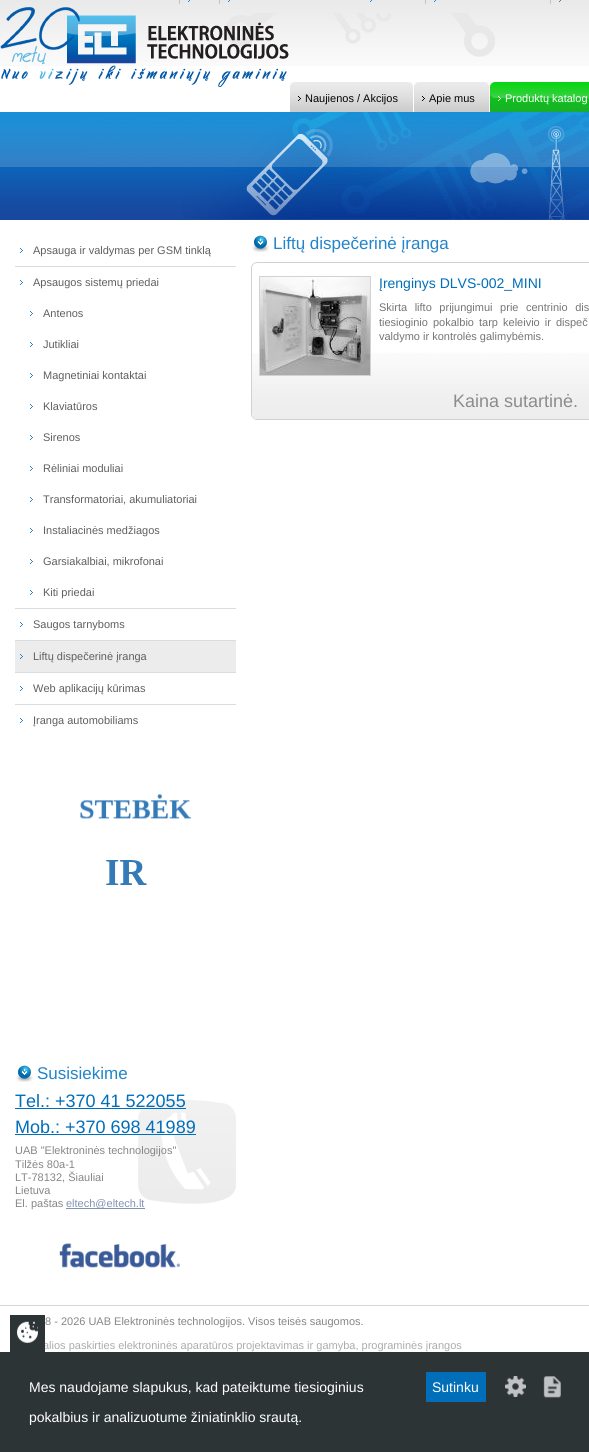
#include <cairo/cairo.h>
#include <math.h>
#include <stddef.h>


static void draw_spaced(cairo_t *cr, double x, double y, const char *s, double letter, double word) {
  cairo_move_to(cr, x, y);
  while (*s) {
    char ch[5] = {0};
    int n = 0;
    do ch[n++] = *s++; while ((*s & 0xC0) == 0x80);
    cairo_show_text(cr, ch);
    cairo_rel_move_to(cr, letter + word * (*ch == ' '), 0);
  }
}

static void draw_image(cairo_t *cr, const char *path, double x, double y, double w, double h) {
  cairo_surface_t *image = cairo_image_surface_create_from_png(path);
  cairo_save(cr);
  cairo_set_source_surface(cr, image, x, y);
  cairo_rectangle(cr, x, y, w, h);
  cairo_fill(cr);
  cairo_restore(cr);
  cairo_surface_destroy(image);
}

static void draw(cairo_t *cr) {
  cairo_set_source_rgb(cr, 1, 1, 1);
  cairo_paint(cr);
  draw_image(cr, "images/1.png", 0, 0, 589, 66);
  cairo_set_source_rgb(cr, 195 / 255.0, 195 / 255.0, 195 / 255.0);
  cairo_rectangle(cr, 179, 0, 1, 4);
  cairo_fill(cr);
  draw_image(cr, "images/2.png", 188, 0, 2, 2);
  cairo_rectangle(cr, 219, 0, 1, 4);
  cairo_fill(cr);
  draw_image(cr, "images/2.png", 228, 0, 2, 2);
  draw_image(cr, "images/2.png", 370, 0, 2, 2);
  cairo_rectangle(cr, 425, 0, 1, 4);
  cairo_fill(cr);
  draw_image(cr, "images/2.png", 434, 0, 2, 2);
  cairo_rectangle(cr, 550, 0, 1, 4);
  cairo_fill(cr);
  draw_image(cr, "images/2.png", 559, 0, 2, 2);
  draw_image(cr, "images/4.png", 225, 13, 270, 44);
  draw_image(cr, "images/3.png", 0, 7, 289, 80);
  draw_image(cr, "images/5.png", 290, 82, 123, 30);
  draw_image(cr, "images/6.png", 290, 82, 11, 19);
  draw_image(cr, "images/7.png", 414, 82, 75, 30);
  draw_image(cr, "images/6.png", 414, 82, 11, 19);
  draw_image(cr, "images/8.png", 490, 82, 99, 30);
  draw_image(cr, "images/9.png", 490, 82, 11, 19);
  draw_image(cr, "images/10.png", 0, 112, 86, 108);
  draw_image(cr, "images/11.png", 86, 112, 503, 108);
  draw_image(cr, "images/12.png", 20, 248, 3, 5);
  cairo_set_source_rgb(cr, 220 / 255.0, 220 / 255.0, 220 / 255.0);
  cairo_rectangle(cr, 15, 266, 221, 1);
  cairo_fill(cr);
  draw_image(cr, "images/12.png", 20, 280, 3, 5);
  draw_image(cr, "images/12.png", 30, 311, 3, 5);
  draw_image(cr, "images/12.png", 30, 342, 3, 5);
  draw_image(cr, "images/12.png", 30, 373, 3, 5);
  draw_image(cr, "images/12.png", 30, 404, 3, 5);
  draw_image(cr, "images/12.png", 30, 435, 3, 5);
  draw_image(cr, "images/12.png", 30, 466, 3, 5);
  draw_image(cr, "images/12.png", 30, 497, 3, 5);
  draw_image(cr, "images/12.png", 30, 528, 3, 5);
  draw_image(cr, "images/12.png", 30, 559, 3, 5);
  draw_image(cr, "images/12.png", 30, 590, 3, 5);
  cairo_rectangle(cr, 15, 608, 221, 1);
  cairo_fill(cr);
  draw_image(cr, "images/12.png", 20, 622, 3, 5);
  cairo_rectangle(cr, 15, 640, 221, 1);
  cairo_fill(cr);
  cairo_set_source_rgb(cr, 236 / 255.0, 236 / 255.0, 236 / 255.0);
  cairo_rectangle(cr, 15, 641, 221, 31);
  cairo_fill(cr);
  draw_image(cr, "images/13.png", 20, 654, 3, 5);
  cairo_set_source_rgb(cr, 220 / 255.0, 220 / 255.0, 220 / 255.0);
  cairo_rectangle(cr, 15, 672, 221, 1);
  cairo_fill(cr);
  draw_image(cr, "images/12.png", 20, 686, 3, 5);
  cairo_rectangle(cr, 15, 704, 221, 1);
  cairo_fill(cr);
  draw_image(cr, "images/12.png", 20, 718, 3, 5);
  draw_image(cr, "images/14.png", 80, 794, 112, 91);
  draw_image(cr, "images/15.png", 252, 235, 17, 17);
  draw_image(cr, "images/16.png", 251, 262, 338, 91);
  draw_image(cr, "images/18.png", 251, 353, 338, 67);
  cairo_rectangle(cr, 259.5, 276.5, 111, 99);
  cairo_set_source_rgb(cr, 210 / 255.0, 210 / 255.0, 210 / 255.0);
  cairo_set_line_width(cr, 1);
  cairo_stroke(cr);
  draw_image(cr, "images/17.png", 260, 277, 110, 98);
  draw_image(cr, "images/19.png", 138, 1099, 98, 105);
  draw_image(cr, "images/15.png", 16, 1065, 17, 17);
  cairo_set_source_rgb(cr, 0, 110 / 255.0, 185 / 255.0);
  cairo_rectangle(cr, 15, 1108, 171, 1);
  cairo_fill(cr);
  cairo_rectangle(cr, 15, 1134, 181, 1);
  cairo_fill(cr);
  cairo_set_source_rgb(cr, 131 / 255.0, 146 / 255.0, 176 / 255.0);
  cairo_rectangle(cr, 66, 1208, 79, 1);
  cairo_fill(cr);
  draw_image(cr, "images/20.png", 59, 1243, 122, 25);
  cairo_set_source_rgb(cr, 213 / 255.0, 213 / 255.0, 213 / 255.0);
  cairo_rectangle(cr, 0, 1305, 589, 1);
  cairo_fill(cr);
  cairo_set_source_rgb(cr, 45 / 255.0, 52 / 255.0, 54 / 255.0);
  cairo_rectangle(cr, 0, 1352, 589, 100);
  cairo_fill(cr);
  cairo_set_source_rgb(cr, 0, 110 / 255.0, 185 / 255.0);
  cairo_rectangle(cr, 426, 1372, 60, 30);
  cairo_fill(cr);
  draw_image(cr, "images/22.png", 505, 1376, 21, 21);
  draw_image(cr, "images/23.png", 543, 1376, 18, 22);
  cairo_select_font_face(cr, "Liberation Sans", CAIRO_FONT_SLANT_NORMAL, CAIRO_FONT_WEIGHT_NORMAL);
  cairo_set_font_size(cr, 11);
  cairo_set_source_rgb(cr, 5 / 255.0, 5 / 255.0, 5 / 255.0);
  cairo_move_to(cr, 305, 102);
  cairo_show_text(cr, "Naujienos / Akcijos");
  cairo_move_to(cr, 429, 102);
  cairo_show_text(cr, "Apie mus");
  cairo_set_source_rgb(cr, 1, 1, 1);
  cairo_move_to(cr, 505, 102);
  cairo_show_text(cr, "Produktų katalog");
  cairo_set_source_rgb(cr, 95 / 255.0, 95 / 255.0, 95 / 255.0);
  cairo_move_to(cr, 33, 254);
  cairo_show_text(cr, "Apsauga ir valdymas per GSM tinklą");
  cairo_move_to(cr, 33, 286);
  cairo_show_text(cr, "Apsaugos sistemų priedai");
  cairo_move_to(cr, 43, 317);
  cairo_show_text(cr, "Antenos");
  cairo_move_to(cr, 43, 348);
  cairo_show_text(cr, "Jutikliai");
  cairo_move_to(cr, 43, 379);
  cairo_show_text(cr, "Magnetiniai kontaktai");
  cairo_move_to(cr, 43, 410);
  cairo_show_text(cr, "Klaviatūros");
  cairo_move_to(cr, 43, 441);
  cairo_show_text(cr, "Sirenos");
  cairo_move_to(cr, 43, 472);
  cairo_show_text(cr, "Rėliniai moduliai");
  cairo_move_to(cr, 43, 503);
  cairo_show_text(cr, "Transformatoriai, akumuliatoriai");
  cairo_move_to(cr, 43, 534);
  cairo_show_text(cr, "Instaliacinės medžiagos");
  cairo_move_to(cr, 43, 565);
  cairo_show_text(cr, "Garsiakalbiai, mikrofonai");
  cairo_move_to(cr, 43, 596);
  cairo_show_text(cr, "Kiti priedai");
  cairo_move_to(cr, 33, 628);
  cairo_show_text(cr, "Saugos tarnyboms");
  cairo_move_to(cr, 33, 660);
  cairo_show_text(cr, "Liftų dispečerinė įranga");
  cairo_move_to(cr, 33, 692);
  cairo_show_text(cr, "Web aplikacijų kūrimas");
  cairo_move_to(cr, 33, 724);
  cairo_show_text(cr, "Įranga automobiliams");
  cairo_set_font_size(cr, 17);
  cairo_set_source_rgb(cr, 34 / 255.0, 133 / 255.0, 201 / 255.0);
  cairo_move_to(cr, 273, 249);
  cairo_show_text(cr, "Liftų dispečerinė įranga");
  cairo_set_font_size(cr, 14);
  cairo_set_source_rgb(cr, 0, 110 / 255.0, 185 / 255.0);
  cairo_move_to(cr, 379, 288);
  cairo_show_text(cr, "Įrenginys DLVS-002_MINI");
  cairo_set_font_size(cr, 11);
  cairo_set_source_rgb(cr, 117 / 255.0, 117 / 255.0, 117 / 255.0);
  draw_spaced(cr, 379, 311, "Skirta lifto prijungimui prie centrinio dis", 0, 4.5);
  draw_spaced(cr, 379, 326, "tiesioginio pokalbio tarp keleivio ir dispeč", 0, 2);
  cairo_move_to(cr, 379, 340);
  cairo_show_text(cr, "valdymo ir kontrolės galimybėmis.");
  cairo_set_font_size(cr, 18);
  cairo_set_source_rgb(cr, 140 / 255.0, 140 / 255.0, 140 / 255.0);
  cairo_move_to(cr, 453, 407);
  cairo_show_text(cr, "Kaina sutartinė.");
  cairo_set_font_size(cr, 17);
  cairo_set_source_rgb(cr, 34 / 255.0, 133 / 255.0, 201 / 255.0);
  cairo_move_to(cr, 37, 1079);
  cairo_show_text(cr, "Susisiekime");
  cairo_set_font_size(cr, 18);
  cairo_set_source_rgb(cr, 0, 110 / 255.0, 185 / 255.0);
  cairo_move_to(cr, 15, 1107);
  cairo_show_text(cr, "Tel.: +370 41 522055");
  cairo_move_to(cr, 15, 1133);
  cairo_show_text(cr, "Mob.: +370 698 41989");
  cairo_set_font_size(cr, 11);
  cairo_set_source_rgb(cr, 134 / 255.0, 134 / 255.0, 134 / 255.0);
  cairo_move_to(cr, 15, 1154);
  cairo_show_text(cr, "UAB \"Elektroninės technologijos\"");
  cairo_move_to(cr, 15, 1168);
  cairo_show_text(cr, "Tilžės 80a-1");
  cairo_move_to(cr, 15, 1181);
  cairo_show_text(cr, "LT-78132, Šiauliai");
  cairo_move_to(cr, 15, 1194);
  cairo_show_text(cr, "Lietuva");
  cairo_move_to(cr, 15, 1207);
  cairo_show_text(cr, "El. paštas");
  cairo_set_source_rgb(cr, 131 / 255.0, 146 / 255.0, 176 / 255.0);
  cairo_move_to(cr, 66, 1207);
  cairo_show_text(cr, "eltech@eltech.lt");
  cairo_set_source_rgb(cr, 134 / 255.0, 134 / 255.0, 134 / 255.0);
  cairo_move_to(cr, 45, 1325);
  cairo_show_text(cr, "8 - 2026 UAB Elektroninės technologijos. Visos teisės saugomos.");
  cairo_set_source_rgb(cr, 172 / 255.0, 172 / 255.0, 172 / 255.0);
  cairo_move_to(cr, 43, 1349);
  cairo_show_text(cr, "alios paskirties elektroninės aparatūros projektavimas ir gamyba, programinės įrangos");
  cairo_set_source_rgb(cr, 45 / 255.0, 52 / 255.0, 54 / 255.0);
  cairo_rectangle(cr, 10, 1315, 35, 37);
  cairo_fill(cr);
  draw_image(cr, "images/21.png", 17, 1321, 21, 22);
  cairo_set_font_size(cr, 14);
  cairo_set_source_rgb(cr, 1, 1, 1);
  cairo_move_to(cr, 29, 1392);
  cairo_show_text(cr, "Mes naudojame slapukus, kad pateiktume tiesioginius");
  cairo_move_to(cr, 29, 1422);
  cairo_show_text(cr, "pokalbius ir analizuotume žiniatinklio srautą.");
  cairo_move_to(cr, 432, 1392);
  cairo_show_text(cr, "Sutinku");
}

int main(void) {
  cairo_surface_t *surface = cairo_image_surface_create(CAIRO_FORMAT_RGB24, 589, 1452);
  cairo_t *cr = cairo_create(surface);
  cairo_font_options_t *options = cairo_font_options_create();
  cairo_font_options_set_hint_metrics(options, CAIRO_HINT_METRICS_OFF);
  cairo_font_options_set_hint_style(options, CAIRO_HINT_STYLE_NONE);
  cairo_set_font_options(cr, options);
  cairo_set_miter_limit(cr, 4);
  draw(cr);
  cairo_surface_write_to_png(surface, "out.png");
  cairo_font_options_destroy(options);
  cairo_destroy(cr);
  cairo_surface_destroy(surface);
  return 0;
}
